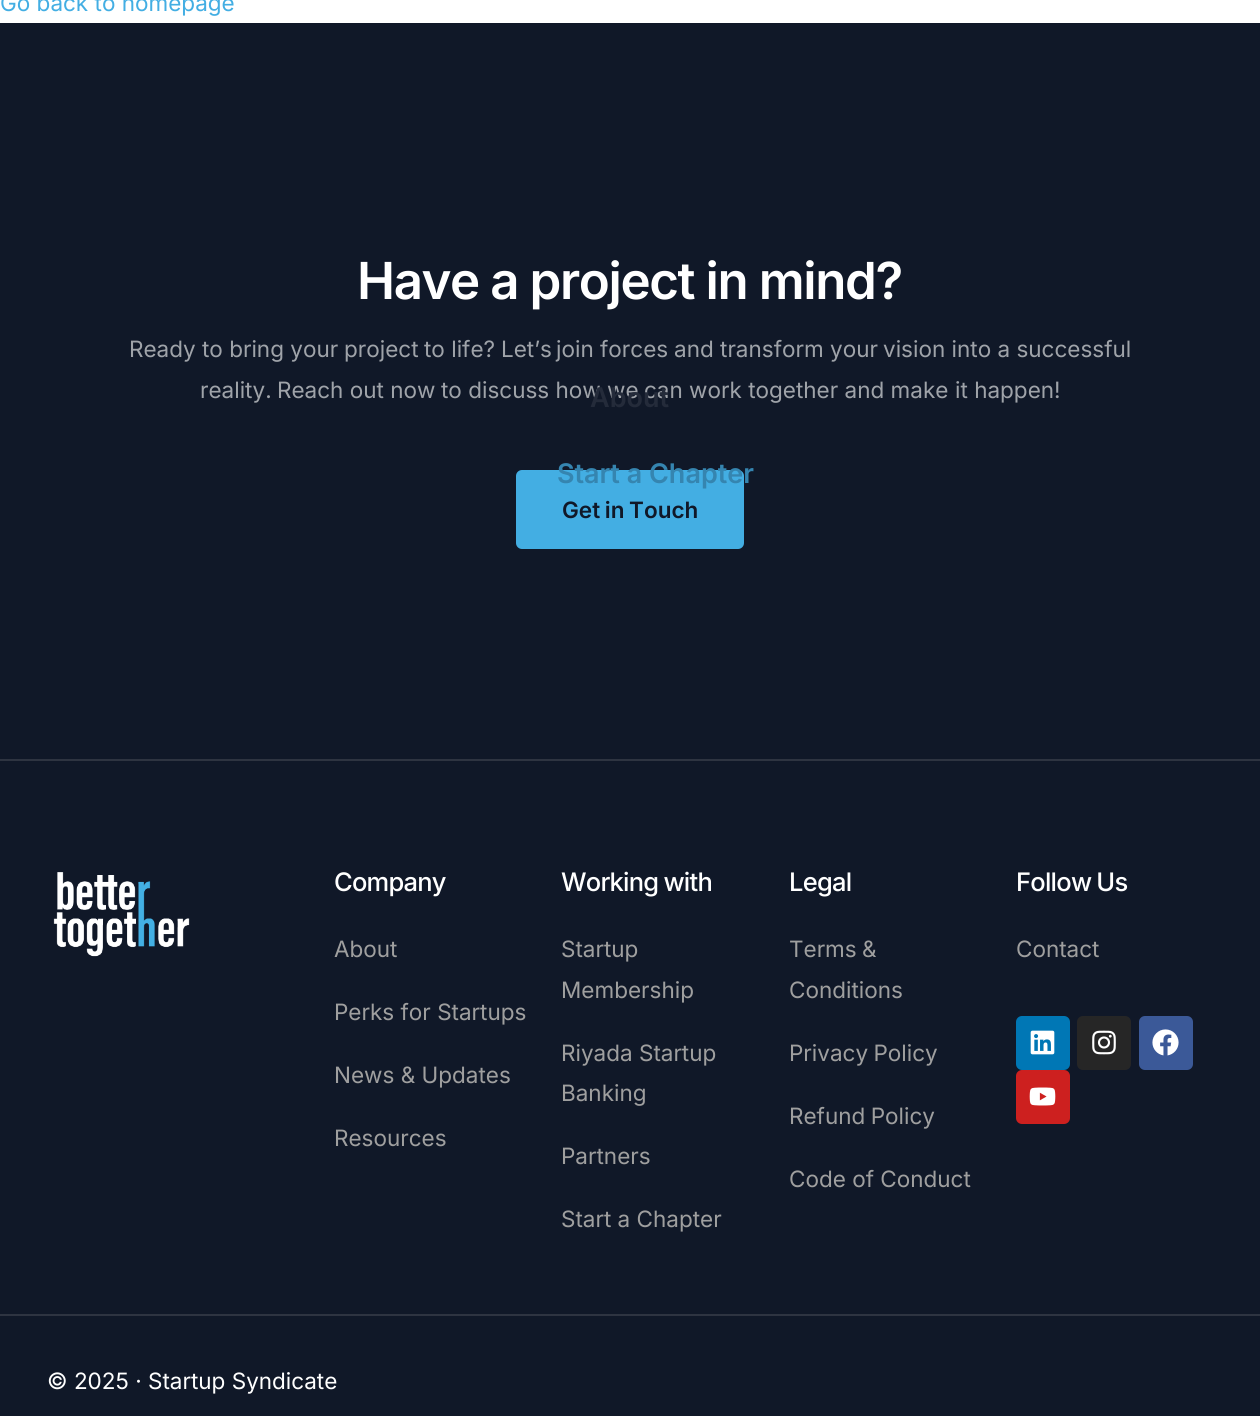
#include <cairo/cairo.h>
#include <math.h>
#include <stddef.h>


static void draw_spaced(cairo_t *cr, double x, double y, const char *s, double letter, double word) {
  cairo_move_to(cr, x, y);
  while (*s) {
    char ch[5] = {0};
    int n = 0;
    do ch[n++] = *s++; while ((*s & 0xC0) == 0x80);
    cairo_show_text(cr, ch);
    cairo_rel_move_to(cr, letter + word * (*ch == ' '), 0);
  }
}

static void rounded_rect(cairo_t *cr, double x, double y, double w, double h, double r) {
  cairo_new_sub_path(cr);
  cairo_arc(cr, x + w - r, y + h - r, r, 0, M_PI / 2);
  cairo_arc(cr, x + r, y + h - r, r, M_PI / 2, M_PI);
  cairo_arc(cr, x + r, y + r, r, M_PI, 1.5 * M_PI);
  cairo_arc(cr, x + w - r, y + r, r, 1.5 * M_PI, 2 * M_PI);
  cairo_close_path(cr);
}

static void draw_image(cairo_t *cr, const char *path, double x, double y, double w, double h) {
  cairo_surface_t *image = cairo_image_surface_create_from_png(path);
  cairo_save(cr);
  cairo_set_source_surface(cr, image, x, y);
  cairo_rectangle(cr, x, y, w, h);
  cairo_fill(cr);
  cairo_restore(cr);
  cairo_surface_destroy(image);
}

static void draw(cairo_t *cr) {
  cairo_set_source_rgb(cr, 1, 1, 1);
  cairo_paint(cr);
  cairo_set_source_rgb(cr, 16 / 255.0, 24 / 255.0, 40 / 255.0);
  cairo_rectangle(cr, 0, 23, 1260, 736);
  cairo_fill(cr);
  cairo_set_source_rgb(cr, 67 / 255.0, 174 / 255.0, 227 / 255.0);
  rounded_rect(cr, 516, 470, 228, 79, 6);
  cairo_fill(cr);
  cairo_set_source_rgb(cr, 16 / 255.0, 24 / 255.0, 40 / 255.0);
  cairo_rectangle(cr, 0, 761, 1260, 553);
  cairo_fill(cr);
  cairo_set_source_rgb(cr, 46 / 255.0, 52 / 255.0, 65 / 255.0);
  cairo_rectangle(cr, 0, 759, 1260, 2);
  cairo_fill(cr);
  draw_image(cr, "images/1.png", 53, 872, 137, 85);
  cairo_set_source_rgb(cr, 0, 119 / 255.0, 181 / 255.0);
  rounded_rect(cr, 1016, 1016, 54, 54, 6);
  cairo_fill(cr);
  draw_image(cr, "images/2.png", 1030, 1030, 25, 25);
  cairo_set_source_rgb(cr, 38 / 255.0, 38 / 255.0, 38 / 255.0);
  rounded_rect(cr, 1077, 1016, 54, 54, 6);
  cairo_fill(cr);
  draw_image(cr, "images/3.png", 1092, 1030, 24, 25);
  cairo_set_source_rgb(cr, 59 / 255.0, 89 / 255.0, 152 / 255.0);
  rounded_rect(cr, 1139, 1016, 54, 54, 6);
  cairo_fill(cr);
  draw_image(cr, "images/4.png", 1152, 1029, 27, 27);
  cairo_set_source_rgb(cr, 205 / 255.0, 32 / 255.0, 31 / 255.0);
  rounded_rect(cr, 1016, 1070, 54, 54, 6);
  cairo_fill(cr);
  draw_image(cr, "images/5.png", 1029, 1087, 27, 19);
  cairo_set_source_rgb(cr, 16 / 255.0, 24 / 255.0, 40 / 255.0);
  cairo_rectangle(cr, 0, 1316, 1260, 100);
  cairo_fill(cr);
  cairo_set_source_rgb(cr, 46 / 255.0, 52 / 255.0, 65 / 255.0);
  cairo_rectangle(cr, 0, 1314, 1260, 2);
  cairo_fill(cr);
  cairo_select_font_face(cr, "Inter", CAIRO_FONT_SLANT_NORMAL, CAIRO_FONT_WEIGHT_NORMAL);
  cairo_set_font_size(cr, 22.5);
  cairo_set_source_rgb(cr, 67 / 255.0, 174 / 255.0, 227 / 255.0);
  cairo_move_to(cr, 0, 11);
  cairo_show_text(cr, "Go back to homepage");
  cairo_select_font_face(cr, "Inter SemiBold", CAIRO_FONT_SLANT_NORMAL, CAIRO_FONT_WEIGHT_NORMAL);
  cairo_set_font_size(cr, 51);
  cairo_set_source_rgb(cr, 1, 1, 1);
  draw_spaced(cr, 357, 299, "Have a project in mind?", -1.4, 0);
  cairo_select_font_face(cr, "Inter", CAIRO_FONT_SLANT_NORMAL, CAIRO_FONT_WEIGHT_NORMAL);
  cairo_set_font_size(cr, 22.5);
  cairo_set_source_rgb(cr, 159 / 255.0, 163 / 255.0, 169 / 255.0);
  cairo_move_to(cr, 129, 357);
  cairo_show_text(cr, "Ready to bring your");
  cairo_move_to(cr, 344, 357);
  cairo_show_text(cr, "project");
  cairo_move_to(cr, 424, 357);
  cairo_show_text(cr, "to life?");
  cairo_move_to(cr, 501, 357);
  cairo_show_text(cr, "Let’s");
  cairo_move_to(cr, 556, 357);
  cairo_show_text(cr, "join forces");
  cairo_move_to(cr, 674, 357);
  cairo_show_text(cr, "and transform your");
  cairo_move_to(cr, 883, 357);
  cairo_show_text(cr, "vision into a successful");
  cairo_move_to(cr, 200, 398);
  cairo_show_text(cr, "reality.");
  cairo_move_to(cr, 277, 398);
  cairo_show_text(cr, "Reach out now");
  cairo_move_to(cr, 441, 398);
  cairo_show_text(cr, "to discuss how");
  cairo_move_to(cr, 607, 398);
  cairo_show_text(cr, "we");
  cairo_move_to(cr, 644, 398);
  cairo_show_text(cr, "can work together and make");
  cairo_move_to(cr, 955, 398);
  cairo_show_text(cr, "it happen!");
  cairo_select_font_face(cr, "Inter SemiBold", CAIRO_FONT_SLANT_NORMAL, CAIRO_FONT_WEIGHT_NORMAL);
  cairo_set_source_rgb(cr, 16 / 255.0, 24 / 255.0, 40 / 255.0);
  draw_spaced(cr, 562, 518, "Get in Touch", 0, -1);
  cairo_select_font_face(cr, "Inter Medium", CAIRO_FONT_SLANT_NORMAL, CAIRO_FONT_WEIGHT_NORMAL);
  cairo_set_font_size(cr, 25.5);
  cairo_set_source_rgb(cr, 1, 1, 1);
  draw_spaced(cr, 334, 891, "Company", -0.75, 0);
  cairo_select_font_face(cr, "Inter", CAIRO_FONT_SLANT_NORMAL, CAIRO_FONT_WEIGHT_NORMAL);
  cairo_set_font_size(cr, 22.5);
  cairo_set_source_rgb(cr, 159 / 255.0, 159 / 255.0, 159 / 255.0);
  cairo_move_to(cr, 334, 957);
  cairo_show_text(cr, "About");
  cairo_move_to(cr, 334, 1020);
  cairo_show_text(cr, "Perks for Startups");
  cairo_move_to(cr, 334, 1083);
  cairo_show_text(cr, "News & Updates");
  cairo_move_to(cr, 334, 1146);
  cairo_show_text(cr, "Resources");
  cairo_select_font_face(cr, "Inter Medium", CAIRO_FONT_SLANT_NORMAL, CAIRO_FONT_WEIGHT_NORMAL);
  cairo_set_font_size(cr, 25.5);
  cairo_set_source_rgb(cr, 1, 1, 1);
  draw_spaced(cr, 561, 891, "Working with", -0.75, -1);
  cairo_select_font_face(cr, "Inter", CAIRO_FONT_SLANT_NORMAL, CAIRO_FONT_WEIGHT_NORMAL);
  cairo_set_font_size(cr, 22.5);
  cairo_set_source_rgb(cr, 159 / 255.0, 159 / 255.0, 159 / 255.0);
  cairo_move_to(cr, 561, 957);
  cairo_show_text(cr, "Startup");
  cairo_move_to(cr, 561, 998);
  cairo_show_text(cr, "Membership");
  cairo_move_to(cr, 561, 1061);
  cairo_show_text(cr, "Riyada Startup");
  cairo_move_to(cr, 561, 1101);
  cairo_show_text(cr, "Banking");
  cairo_move_to(cr, 561, 1164);
  cairo_show_text(cr, "Partners");
  cairo_move_to(cr, 561, 1227);
  cairo_show_text(cr, "Start a Chapter");
  cairo_select_font_face(cr, "Inter Medium", CAIRO_FONT_SLANT_NORMAL, CAIRO_FONT_WEIGHT_NORMAL);
  cairo_set_font_size(cr, 25.5);
  cairo_set_source_rgb(cr, 1, 1, 1);
  draw_spaced(cr, 789, 891, "Legal", -0.75, 0);
  cairo_select_font_face(cr, "Inter", CAIRO_FONT_SLANT_NORMAL, CAIRO_FONT_WEIGHT_NORMAL);
  cairo_set_font_size(cr, 22.5);
  cairo_set_source_rgb(cr, 159 / 255.0, 159 / 255.0, 159 / 255.0);
  draw_spaced(cr, 789, 957, "Terms &", 0, -1);
  cairo_move_to(cr, 789, 998);
  cairo_show_text(cr, "Conditions");
  draw_spaced(cr, 789, 1061, "Privacy Policy", 0, -1);
  draw_spaced(cr, 789, 1124, "Refund Policy", 0, -1);
  cairo_move_to(cr, 789, 1187);
  cairo_show_text(cr, "Code of Conduct");
  cairo_select_font_face(cr, "Inter Medium", CAIRO_FONT_SLANT_NORMAL, CAIRO_FONT_WEIGHT_NORMAL);
  cairo_set_font_size(cr, 25.5);
  cairo_set_source_rgb(cr, 1, 1, 1);
  draw_spaced(cr, 1016, 891, "Follow Us", -0.75, -1);
  cairo_select_font_face(cr, "Inter", CAIRO_FONT_SLANT_NORMAL, CAIRO_FONT_WEIGHT_NORMAL);
  cairo_set_font_size(cr, 22.5);
  cairo_set_source_rgb(cr, 159 / 255.0, 159 / 255.0, 159 / 255.0);
  cairo_move_to(cr, 1016, 957);
  cairo_show_text(cr, "Contact");
  cairo_set_source_rgb(cr, 1, 1, 1);
  cairo_move_to(cr, 47, 1389);
  cairo_show_text(cr, "© 2025 · Startup Syndicate");
  cairo_select_font_face(cr, "Inter SemiBold", CAIRO_FONT_SLANT_NORMAL, CAIRO_FONT_WEIGHT_NORMAL);
  cairo_set_font_size(cr, 27);
  cairo_set_source_rgb(cr, 36 / 255.0, 43 / 255.0, 58 / 255.0);
  cairo_move_to(cr, 590, 407);
  cairo_show_text(cr, "About");
  cairo_set_source_rgb(cr, 53 / 255.0, 133 / 255.0, 176 / 255.0);
  cairo_move_to(cr, 557, 483);
  cairo_show_text(cr, "Start a Chapter");
}

int main(void) {
  cairo_surface_t *surface = cairo_image_surface_create(CAIRO_FORMAT_RGB24, 1260, 1416);
  cairo_t *cr = cairo_create(surface);
  cairo_font_options_t *options = cairo_font_options_create();
  cairo_font_options_set_hint_metrics(options, CAIRO_HINT_METRICS_OFF);
  cairo_font_options_set_hint_style(options, CAIRO_HINT_STYLE_NONE);
  cairo_set_font_options(cr, options);
  cairo_set_miter_limit(cr, 4);
  draw(cr);
  cairo_surface_write_to_png(surface, "out.png");
  cairo_font_options_destroy(options);
  cairo_destroy(cr);
  cairo_surface_destroy(surface);
  return 0;
}
